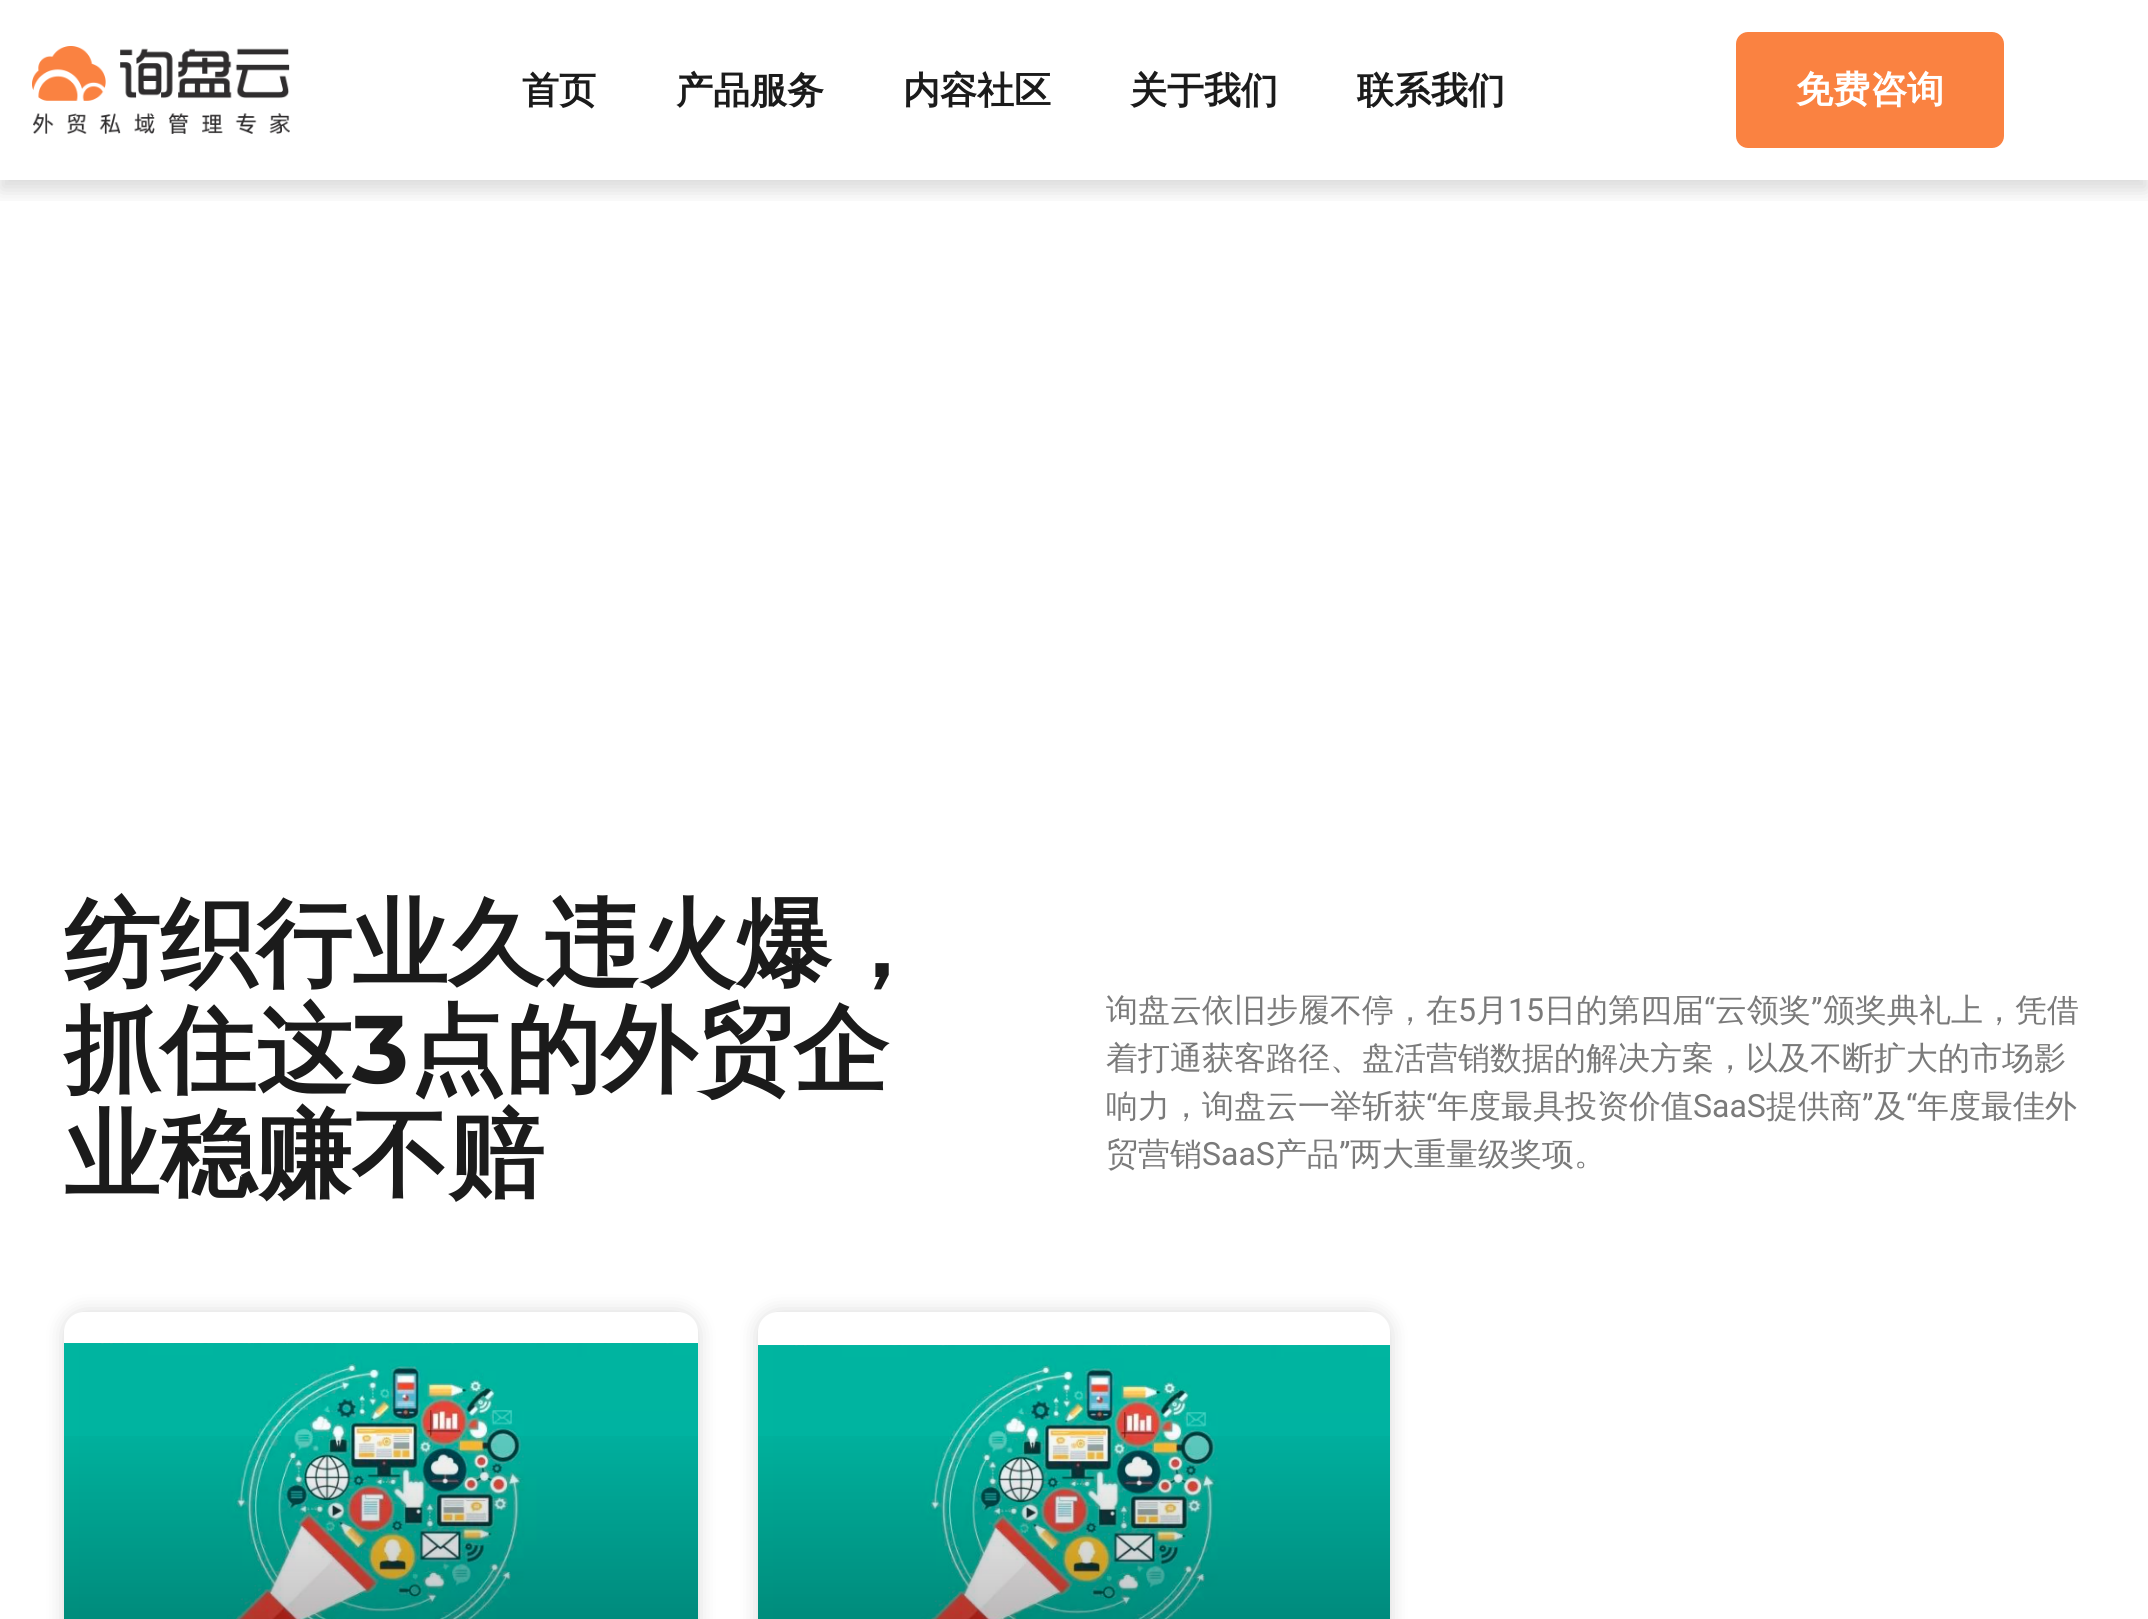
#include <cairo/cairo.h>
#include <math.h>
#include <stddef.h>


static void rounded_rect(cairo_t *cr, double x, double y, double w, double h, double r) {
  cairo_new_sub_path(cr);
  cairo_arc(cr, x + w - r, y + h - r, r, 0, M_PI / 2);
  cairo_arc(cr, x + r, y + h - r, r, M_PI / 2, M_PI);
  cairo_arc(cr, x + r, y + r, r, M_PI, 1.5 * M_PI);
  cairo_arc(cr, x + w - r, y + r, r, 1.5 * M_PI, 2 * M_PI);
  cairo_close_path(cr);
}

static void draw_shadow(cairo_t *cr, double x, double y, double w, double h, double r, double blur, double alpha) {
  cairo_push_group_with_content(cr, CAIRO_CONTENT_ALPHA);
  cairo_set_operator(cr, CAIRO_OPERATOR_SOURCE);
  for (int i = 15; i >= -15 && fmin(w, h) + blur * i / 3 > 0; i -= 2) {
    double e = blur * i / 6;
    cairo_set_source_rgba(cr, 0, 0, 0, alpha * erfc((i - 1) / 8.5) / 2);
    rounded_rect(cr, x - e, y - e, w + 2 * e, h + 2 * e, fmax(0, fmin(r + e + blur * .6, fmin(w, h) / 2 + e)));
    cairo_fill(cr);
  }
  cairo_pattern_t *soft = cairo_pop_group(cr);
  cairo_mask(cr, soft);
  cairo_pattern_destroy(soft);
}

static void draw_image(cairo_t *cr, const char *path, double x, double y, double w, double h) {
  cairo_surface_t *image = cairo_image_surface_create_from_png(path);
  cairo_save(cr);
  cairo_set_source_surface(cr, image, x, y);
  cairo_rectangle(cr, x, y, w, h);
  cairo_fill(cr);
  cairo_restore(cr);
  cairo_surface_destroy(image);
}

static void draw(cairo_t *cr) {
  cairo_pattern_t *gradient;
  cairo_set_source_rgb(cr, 1, 1, 1);
  cairo_paint(cr);
  cairo_save(cr);
  cairo_rectangle(cr, 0, 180, 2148, 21);
  cairo_clip(cr);
  cairo_set_source_rgb(cr, 0, 0, 0);
  draw_shadow(cr, 0, 10, 2148, 180, 0, 10, 0.15);
  cairo_restore(cr);
  draw_image(cr, "images/1.png", 32, 46, 258, 88);
  cairo_set_source_rgb(cr, 250 / 255.0, 130 / 255.0, 65 / 255.0);
  rounded_rect(cr, 1736, 32, 268, 116, 12);
  cairo_fill(cr);
  cairo_set_source_rgb(cr, 0, 0, 0);
  draw_shadow(cr, 64, 1312, 634, 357, 20, 10, 0.15);
  cairo_set_source_rgb(cr, 1, 1, 1);
  rounded_rect(cr, 64, 1312, 634, 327, 20);
  cairo_fill(cr);
  draw_image(cr, "images/2.png", 64, 1343, 634, 276);
  gradient = cairo_pattern_create_linear(381, 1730, 381, 1312);
  cairo_pattern_add_color_stop_rgba(gradient, 0, 0, 0, 0, 0.35);
  cairo_pattern_add_color_stop_rgba(gradient, 0.75, 0, 0, 0, 0);
  cairo_set_source(cr, gradient);
  cairo_pattern_destroy(gradient);
  cairo_rectangle(cr, 64, 1436, 634, 183);
  cairo_fill(cr);
  cairo_set_source_rgb(cr, 0, 0, 0);
  draw_shadow(cr, 758, 1312, 632, 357, 20, 10, 0.15);
  cairo_set_source_rgb(cr, 1, 1, 1);
  rounded_rect(cr, 758, 1312, 632, 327, 20);
  cairo_fill(cr);
  draw_image(cr, "images/3.png", 758, 1345, 632, 274);
  gradient = cairo_pattern_create_linear(1074, 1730, 1074, 1312);
  cairo_pattern_add_color_stop_rgba(gradient, 0, 0, 0, 0, 0.35);
  cairo_pattern_add_color_stop_rgba(gradient, 0.75, 0, 0, 0, 0);
  cairo_set_source(cr, gradient);
  cairo_pattern_destroy(gradient);
  cairo_rectangle(cr, 758, 1436, 632, 183);
  cairo_fill(cr);
  cairo_select_font_face(cr, "WenQuanYi Zen Hei", CAIRO_FONT_SLANT_NORMAL, CAIRO_FONT_WEIGHT_BOLD);
  cairo_set_font_size(cr, 37);
  cairo_set_source_rgb(cr, 27 / 255.0, 27 / 255.0, 27 / 255.0);
  cairo_move_to(cr, 522, 103);
  cairo_show_text(cr, "首页");
  cairo_move_to(cr, 676, 103);
  cairo_show_text(cr, "产品服务");
  cairo_move_to(cr, 903, 103);
  cairo_show_text(cr, "内容社区");
  cairo_move_to(cr, 1130, 103);
  cairo_show_text(cr, "关于我们");
  cairo_move_to(cr, 1357, 103);
  cairo_show_text(cr, "联系我们");
  cairo_set_source_rgb(cr, 1, 1, 1);
  cairo_move_to(cr, 1796, 102);
  cairo_show_text(cr, "免费咨询");
  cairo_set_font_size(cr, 96);
  cairo_set_source_rgb(cr, 27 / 255.0, 27 / 255.0, 27 / 255.0);
  cairo_move_to(cr, 64, 977);
  cairo_show_text(cr, "纺织行业久违火爆，");
  cairo_move_to(cr, 64, 1083);
  cairo_show_text(cr, "抓住这");
  cairo_select_font_face(cr, "Montserrat", CAIRO_FONT_SLANT_NORMAL, CAIRO_FONT_WEIGHT_BOLD);
  cairo_move_to(cr, 352, 1083);
  cairo_show_text(cr, "3");
  cairo_select_font_face(cr, "WenQuanYi Zen Hei", CAIRO_FONT_SLANT_NORMAL, CAIRO_FONT_WEIGHT_BOLD);
  cairo_move_to(cr, 409, 1083);
  cairo_show_text(cr, "点的外贸企");
  cairo_move_to(cr, 64, 1188);
  cairo_show_text(cr, "业稳赚不赔");
  cairo_select_font_face(cr, "WenQuanYi Zen Hei Medium", CAIRO_FONT_SLANT_NORMAL, CAIRO_FONT_WEIGHT_NORMAL);
  cairo_set_font_size(cr, 32);
  cairo_set_source_rgb(cr, 122 / 255.0, 122 / 255.0, 122 / 255.0);
  cairo_move_to(cr, 1106, 1021);
  cairo_show_text(cr, "询盘云依旧步履不停，在");
  cairo_select_font_face(cr, "Roboto", CAIRO_FONT_SLANT_NORMAL, CAIRO_FONT_WEIGHT_NORMAL);
  cairo_move_to(cr, 1458, 1021);
  cairo_show_text(cr, "5");
  cairo_select_font_face(cr, "WenQuanYi Zen Hei Medium", CAIRO_FONT_SLANT_NORMAL, CAIRO_FONT_WEIGHT_NORMAL);
  cairo_move_to(cr, 1476, 1021);
  cairo_show_text(cr, "月");
  cairo_select_font_face(cr, "Roboto", CAIRO_FONT_SLANT_NORMAL, CAIRO_FONT_WEIGHT_NORMAL);
  cairo_move_to(cr, 1508, 1021);
  cairo_show_text(cr, "15");
  cairo_select_font_face(cr, "WenQuanYi Zen Hei Medium", CAIRO_FONT_SLANT_NORMAL, CAIRO_FONT_WEIGHT_NORMAL);
  cairo_move_to(cr, 1544, 1021);
  cairo_show_text(cr, "日的第四届");
  cairo_select_font_face(cr, "Roboto", CAIRO_FONT_SLANT_NORMAL, CAIRO_FONT_WEIGHT_NORMAL);
  cairo_move_to(cr, 1704, 1021);
  cairo_show_text(cr, "“");
  cairo_select_font_face(cr, "WenQuanYi Zen Hei Medium", CAIRO_FONT_SLANT_NORMAL, CAIRO_FONT_WEIGHT_NORMAL);
  cairo_move_to(cr, 1715, 1021);
  cairo_show_text(cr, "云领奖");
  cairo_select_font_face(cr, "Roboto", CAIRO_FONT_SLANT_NORMAL, CAIRO_FONT_WEIGHT_NORMAL);
  cairo_move_to(cr, 1811, 1021);
  cairo_show_text(cr, "”");
  cairo_select_font_face(cr, "WenQuanYi Zen Hei Medium", CAIRO_FONT_SLANT_NORMAL, CAIRO_FONT_WEIGHT_NORMAL);
  cairo_move_to(cr, 1823, 1021);
  cairo_show_text(cr, "颁奖典礼上，凭借");
  cairo_move_to(cr, 1106, 1069);
  cairo_show_text(cr, "着打通获客路径、盘活营销数据的解决方案，以及不断扩大的市场影");
  cairo_move_to(cr, 1106, 1117);
  cairo_show_text(cr, "响力，询盘云一举斩获");
  cairo_select_font_face(cr, "Roboto", CAIRO_FONT_SLANT_NORMAL, CAIRO_FONT_WEIGHT_NORMAL);
  cairo_move_to(cr, 1426, 1117);
  cairo_show_text(cr, "“");
  cairo_select_font_face(cr, "WenQuanYi Zen Hei Medium", CAIRO_FONT_SLANT_NORMAL, CAIRO_FONT_WEIGHT_NORMAL);
  cairo_move_to(cr, 1437, 1117);
  cairo_show_text(cr, "年度最具投资价值");
  cairo_select_font_face(cr, "Roboto", CAIRO_FONT_SLANT_NORMAL, CAIRO_FONT_WEIGHT_NORMAL);
  cairo_move_to(cr, 1693, 1117);
  cairo_show_text(cr, "SaaS");
  cairo_select_font_face(cr, "WenQuanYi Zen Hei Medium", CAIRO_FONT_SLANT_NORMAL, CAIRO_FONT_WEIGHT_NORMAL);
  cairo_move_to(cr, 1766, 1117);
  cairo_show_text(cr, "提供商");
  cairo_select_font_face(cr, "Roboto", CAIRO_FONT_SLANT_NORMAL, CAIRO_FONT_WEIGHT_NORMAL);
  cairo_move_to(cr, 1862, 1117);
  cairo_show_text(cr, "”");
  cairo_select_font_face(cr, "WenQuanYi Zen Hei Medium", CAIRO_FONT_SLANT_NORMAL, CAIRO_FONT_WEIGHT_NORMAL);
  cairo_move_to(cr, 1874, 1117);
  cairo_show_text(cr, "及");
  cairo_select_font_face(cr, "Roboto", CAIRO_FONT_SLANT_NORMAL, CAIRO_FONT_WEIGHT_NORMAL);
  cairo_move_to(cr, 1906, 1117);
  cairo_show_text(cr, "“");
  cairo_select_font_face(cr, "WenQuanYi Zen Hei Medium", CAIRO_FONT_SLANT_NORMAL, CAIRO_FONT_WEIGHT_NORMAL);
  cairo_move_to(cr, 1917, 1117);
  cairo_show_text(cr, "年度最佳外");
  cairo_move_to(cr, 1106, 1165);
  cairo_show_text(cr, "贸营销");
  cairo_select_font_face(cr, "Roboto", CAIRO_FONT_SLANT_NORMAL, CAIRO_FONT_WEIGHT_NORMAL);
  cairo_move_to(cr, 1202, 1165);
  cairo_show_text(cr, "SaaS");
  cairo_select_font_face(cr, "WenQuanYi Zen Hei Medium", CAIRO_FONT_SLANT_NORMAL, CAIRO_FONT_WEIGHT_NORMAL);
  cairo_move_to(cr, 1275, 1165);
  cairo_show_text(cr, "产品");
  cairo_select_font_face(cr, "Roboto", CAIRO_FONT_SLANT_NORMAL, CAIRO_FONT_WEIGHT_NORMAL);
  cairo_move_to(cr, 1339, 1165);
  cairo_show_text(cr, "”");
  cairo_select_font_face(cr, "WenQuanYi Zen Hei Medium", CAIRO_FONT_SLANT_NORMAL, CAIRO_FONT_WEIGHT_NORMAL);
  cairo_move_to(cr, 1350, 1165);
  cairo_show_text(cr, "两大重量级奖项。");
}

int main(void) {
  cairo_surface_t *surface = cairo_image_surface_create(CAIRO_FORMAT_RGB24, 2148, 1619);
  cairo_t *cr = cairo_create(surface);
  cairo_font_options_t *options = cairo_font_options_create();
  cairo_font_options_set_hint_metrics(options, CAIRO_HINT_METRICS_OFF);
  cairo_font_options_set_hint_style(options, CAIRO_HINT_STYLE_NONE);
  cairo_set_font_options(cr, options);
  cairo_set_miter_limit(cr, 4);
  draw(cr);
  cairo_surface_write_to_png(surface, "out.png");
  cairo_font_options_destroy(options);
  cairo_destroy(cr);
  cairo_surface_destroy(surface);
  return 0;
}
